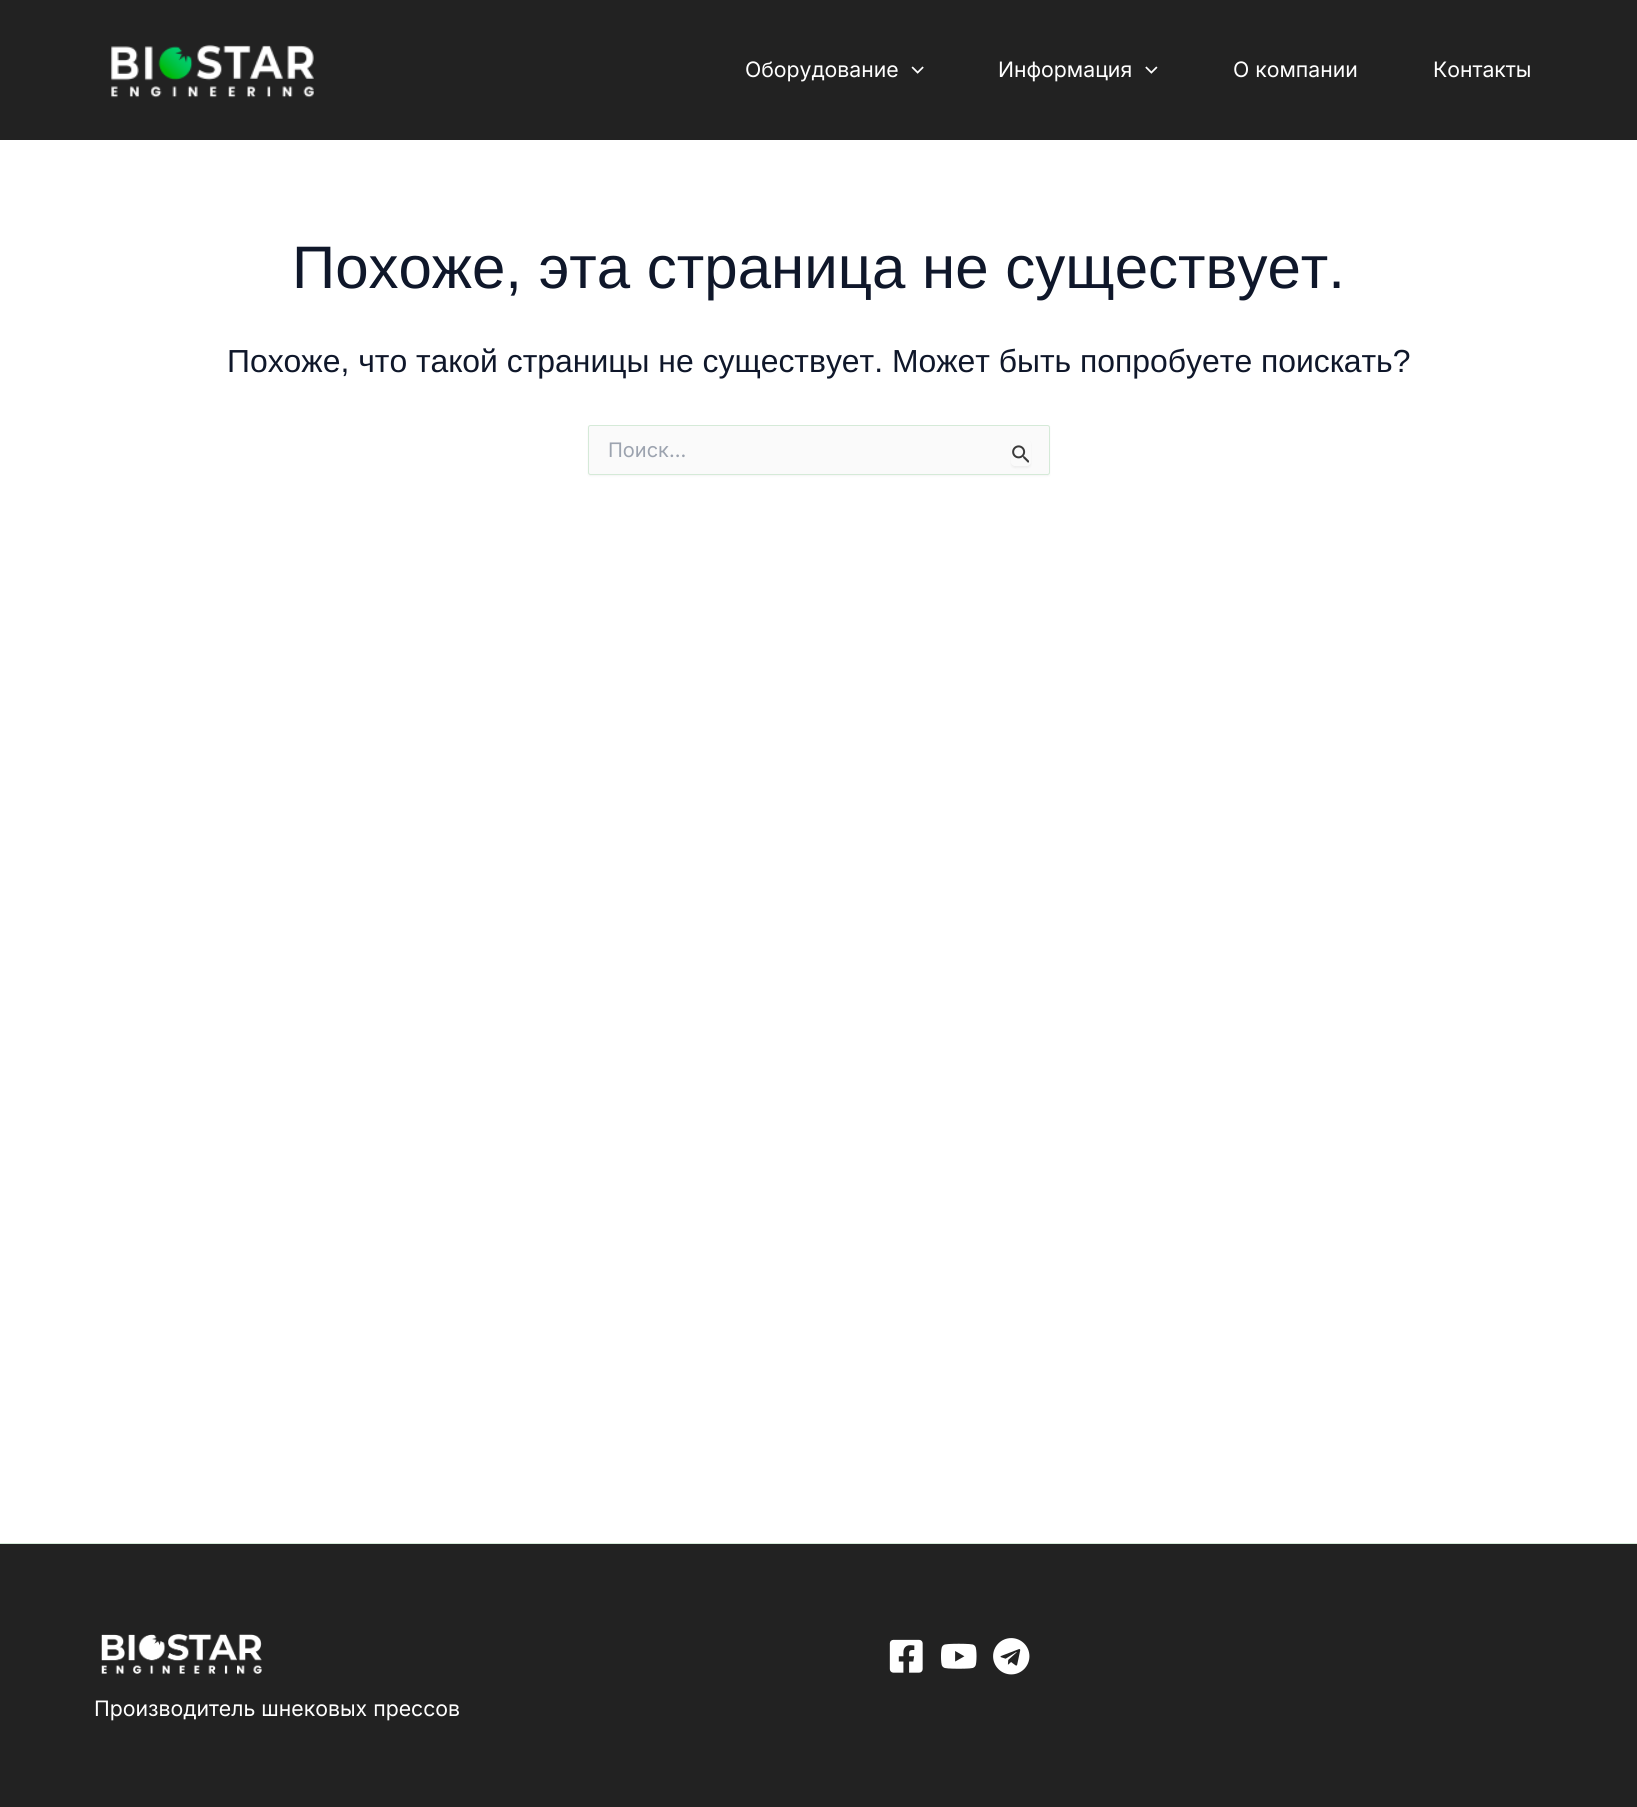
#include <cairo/cairo.h>
#include <math.h>
#include <stddef.h>


static void rounded_rect(cairo_t *cr, double x, double y, double w, double h, double r) {
  cairo_new_sub_path(cr);
  cairo_arc(cr, x + w - r, y + h - r, r, 0, M_PI / 2);
  cairo_arc(cr, x + r, y + h - r, r, M_PI / 2, M_PI);
  cairo_arc(cr, x + r, y + r, r, M_PI, 1.5 * M_PI);
  cairo_arc(cr, x + w - r, y + r, r, 1.5 * M_PI, 2 * M_PI);
  cairo_close_path(cr);
}

static void draw_shadow(cairo_t *cr, double x, double y, double w, double h, double r, double blur, double alpha) {
  cairo_push_group_with_content(cr, CAIRO_CONTENT_ALPHA);
  cairo_set_operator(cr, CAIRO_OPERATOR_SOURCE);
  for (int i = 15; i >= -15 && fmin(w, h) + blur * i / 3 > 0; i -= 2) {
    double e = blur * i / 6;
    cairo_set_source_rgba(cr, 0, 0, 0, alpha * erfc((i - 1) / 8.5) / 2);
    rounded_rect(cr, x - e, y - e, w + 2 * e, h + 2 * e, fmax(0, fmin(r + e + blur * .6, fmin(w, h) / 2 + e)));
    cairo_fill(cr);
  }
  cairo_pattern_t *soft = cairo_pop_group(cr);
  cairo_mask(cr, soft);
  cairo_pattern_destroy(soft);
}

static void draw_image(cairo_t *cr, const char *path, double x, double y, double w, double h) {
  cairo_surface_t *image = cairo_image_surface_create_from_png(path);
  cairo_save(cr);
  cairo_set_source_surface(cr, image, x, y);
  cairo_rectangle(cr, x, y, w, h);
  cairo_fill(cr);
  cairo_restore(cr);
  cairo_surface_destroy(image);
}

static void draw(cairo_t *cr) {
  cairo_set_source_rgb(cr, 1, 1, 1);
  cairo_paint(cr);
  cairo_set_source_rgb(cr, 34 / 255.0, 34 / 255.0, 34 / 255.0);
  cairo_rectangle(cr, 0, 0, 1637, 140);
  cairo_fill(cr);
  draw_image(cr, "images/1.png", 111, 44, 203, 54);
  draw_image(cr, "images/2.png", 911, 66, 13, 8);
  draw_image(cr, "images/3.png", 1145, 66, 13, 8);
  cairo_set_source_rgb(cr, 0, 0, 0);
  draw_shadow(cr, 588, 426, 462, 50, 2.5, 1, 0.05);
  cairo_set_source_rgb(cr, 250 / 255.0, 250 / 255.0, 250 / 255.0);
  rounded_rect(cr, 588.5, 425.5, 461, 49, 2);
  cairo_fill_preserve(cr);
  cairo_set_source_rgb(cr, 213 / 255.0, 234 / 255.0, 216 / 255.0);
  cairo_set_line_width(cr, 1);
  cairo_stroke(cr);
  cairo_save(cr);
  cairo_set_fill_rule(cr, CAIRO_FILL_RULE_EVEN_ODD);
  cairo_new_path(cr);
  cairo_move_to(cr, 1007, 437);
  cairo_line_to(cr, 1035, 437);
  cairo_line_to(cr, 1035, 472);
  cairo_line_to(cr, 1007, 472);
  cairo_close_path(cr);
  cairo_move_to(cr, 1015, 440);
  cairo_line_to(cr, 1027, 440);
  cairo_curve_to(cr, 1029, 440, 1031, 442, 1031, 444);
  cairo_line_to(cr, 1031, 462);
  cairo_curve_to(cr, 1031, 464, 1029, 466, 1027, 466);
  cairo_line_to(cr, 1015, 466);
  cairo_curve_to(cr, 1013, 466, 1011, 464, 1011, 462);
  cairo_line_to(cr, 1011, 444);
  cairo_curve_to(cr, 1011, 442, 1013, 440, 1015, 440);
  cairo_close_path(cr);
  cairo_clip(cr);
  cairo_set_source_rgb(cr, 0, 0, 0);
  draw_shadow(cr, 1011, 441, 20, 27, 4, 1, 0.05);
  cairo_restore(cr);
  draw_image(cr, "images/4.png", 1012, 445, 17, 18);
  cairo_set_source_rgb(cr, 34 / 255.0, 34 / 255.0, 34 / 255.0);
  cairo_rectangle(cr, 0, 1544, 1637, 263);
  cairo_fill(cr);
  cairo_set_source_rgb(cr, 213 / 255.0, 234 / 255.0, 216 / 255.0);
  cairo_rectangle(cr, 0, 1543, 1637, 1);
  cairo_fill(cr);
  draw_image(cr, "images/5.png", 889, 1639, 34, 34);
  draw_image(cr, "images/6.png", 941, 1643, 36, 26);
  draw_image(cr, "images/7.png", 993, 1638, 37, 37);
  draw_image(cr, "images/8.png", 101, 1634, 161, 40);
  cairo_select_font_face(cr, "Inter", CAIRO_FONT_SLANT_NORMAL, CAIRO_FONT_WEIGHT_NORMAL);
  cairo_set_font_size(cr, 21.25);
  cairo_set_source_rgb(cr, 1, 1, 1);
  cairo_move_to(cr, 745, 77);
  cairo_show_text(cr, "Оборудование");
  cairo_move_to(cr, 998, 77);
  cairo_show_text(cr, "Информация");
  cairo_move_to(cr, 1233, 77);
  cairo_show_text(cr, "О компании");
  cairo_move_to(cr, 1433, 77);
  cairo_show_text(cr, "Контакты");
  cairo_select_font_face(cr, "Liberation Sans", CAIRO_FONT_SLANT_NORMAL, CAIRO_FONT_WEIGHT_NORMAL);
  cairo_set_font_size(cr, 60);
  cairo_set_source_rgb(cr, 15 / 255.0, 23 / 255.0, 42 / 255.0);
  cairo_move_to(cr, 292, 288);
  cairo_show_text(cr, "Похоже, эта страница не существует.");
  cairo_set_font_size(cr, 31.9);
  cairo_move_to(cr, 227, 372);
  cairo_show_text(cr, "Похоже, что такой страницы не существует. Может быть попробуете поискать?");
  cairo_select_font_face(cr, "Inter", CAIRO_FONT_SLANT_NORMAL, CAIRO_FONT_WEIGHT_NORMAL);
  cairo_set_font_size(cr, 20);
  cairo_set_source_rgb(cr, 156 / 255.0, 163 / 255.0, 175 / 255.0);
  cairo_move_to(cr, 608, 457);
  cairo_show_text(cr, "Поиск...");
  cairo_set_font_size(cr, 21.25);
  cairo_set_source_rgb(cr, 1, 1, 1);
  cairo_move_to(cr, 94, 1716);
  cairo_show_text(cr, "Производитель шнековых прессов");
}

int main(void) {
  cairo_surface_t *surface = cairo_image_surface_create(CAIRO_FORMAT_RGB24, 1637, 1807);
  cairo_t *cr = cairo_create(surface);
  cairo_font_options_t *options = cairo_font_options_create();
  cairo_font_options_set_hint_metrics(options, CAIRO_HINT_METRICS_OFF);
  cairo_font_options_set_hint_style(options, CAIRO_HINT_STYLE_NONE);
  cairo_set_font_options(cr, options);
  cairo_set_miter_limit(cr, 4);
  draw(cr);
  cairo_surface_write_to_png(surface, "out.png");
  cairo_font_options_destroy(options);
  cairo_destroy(cr);
  cairo_surface_destroy(surface);
  return 0;
}
